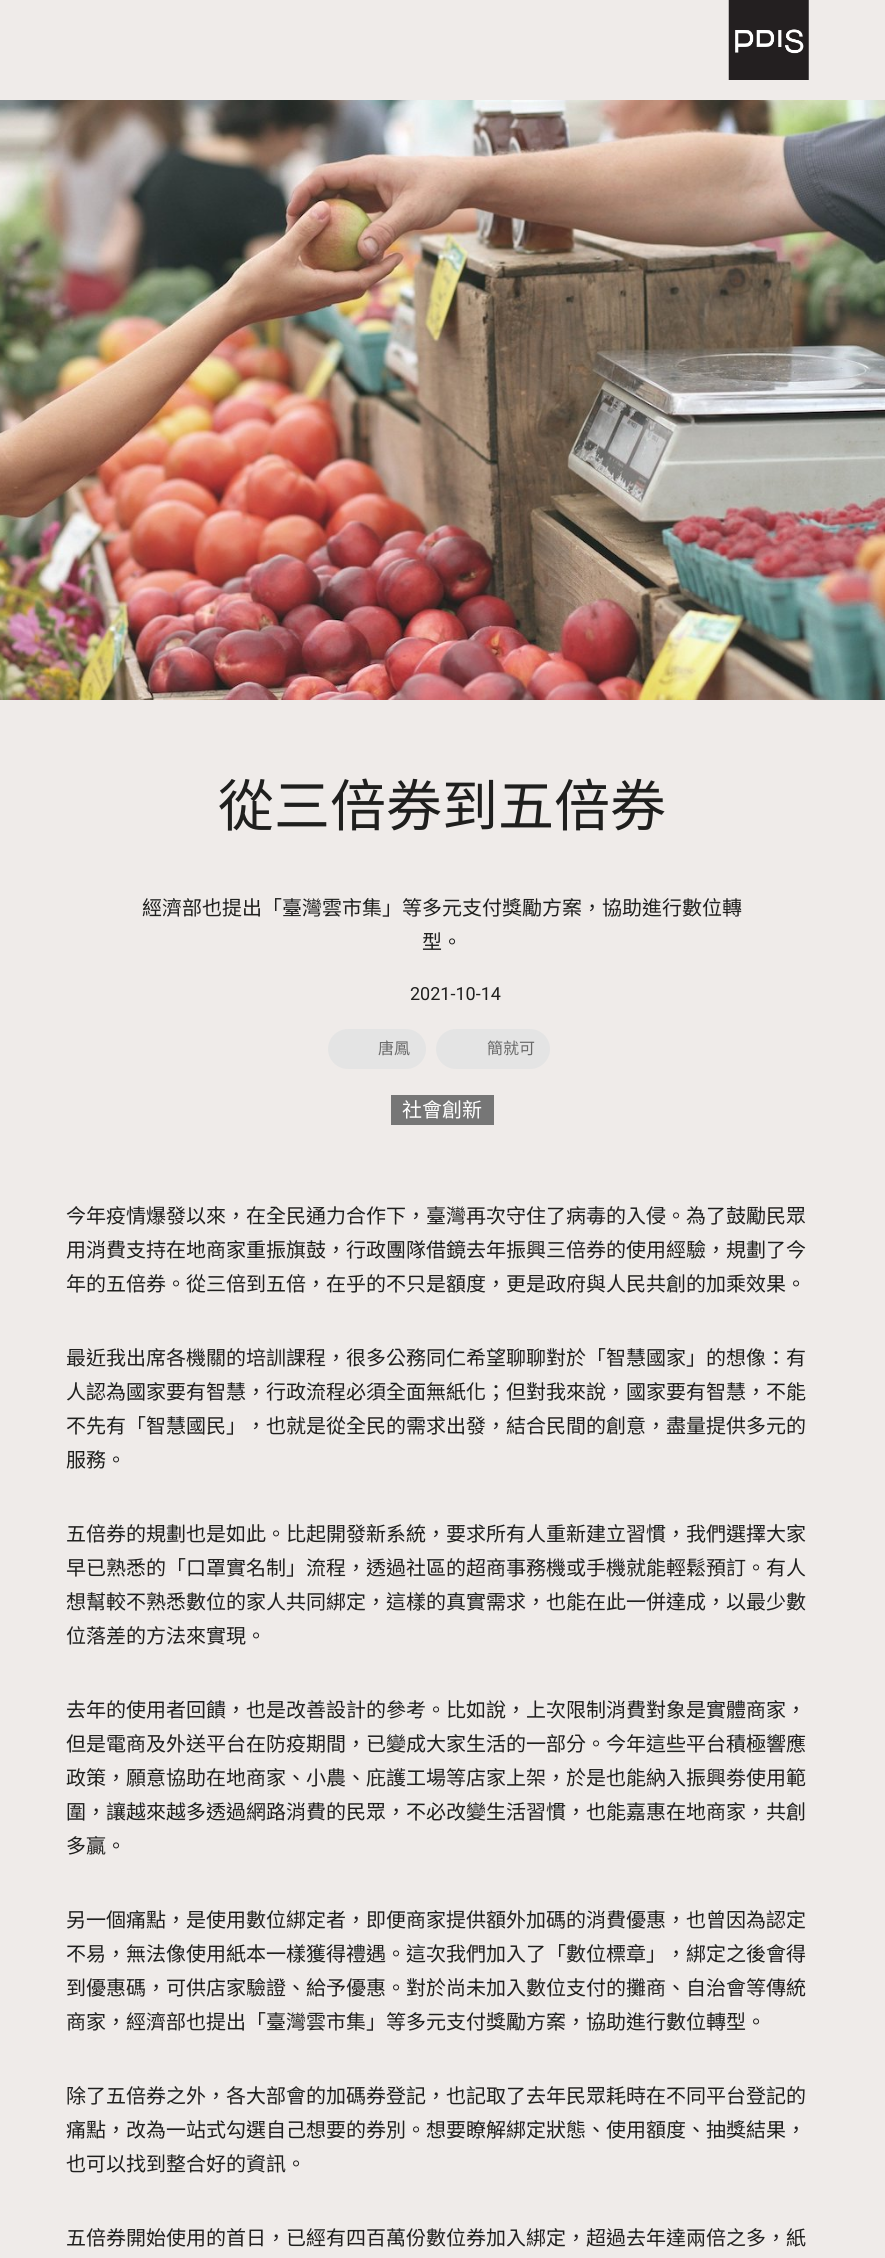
#include <cairo/cairo.h>
#include <math.h>
#include <stddef.h>


static void rounded_rect(cairo_t *cr, double x, double y, double w, double h, double r) {
  cairo_new_sub_path(cr);
  cairo_arc(cr, x + w - r, y + h - r, r, 0, M_PI / 2);
  cairo_arc(cr, x + r, y + h - r, r, M_PI / 2, M_PI);
  cairo_arc(cr, x + r, y + r, r, M_PI, 1.5 * M_PI);
  cairo_arc(cr, x + w - r, y + r, r, 1.5 * M_PI, 2 * M_PI);
  cairo_close_path(cr);
}

static void draw_image(cairo_t *cr, const char *path, double x, double y, double w, double h) {
  cairo_surface_t *image = cairo_image_surface_create_from_png(path);
  cairo_save(cr);
  cairo_set_source_surface(cr, image, x, y);
  cairo_rectangle(cr, x, y, w, h);
  cairo_fill(cr);
  cairo_restore(cr);
  cairo_surface_destroy(image);
}

static void draw(cairo_t *cr) {
  cairo_set_source_rgb(cr, 239 / 255.0, 235 / 255.0, 233 / 255.0);
  cairo_paint(cr);
  draw_image(cr, "images/1.png", 728, 0, 81, 80);
  draw_image(cr, "images/2.png", 0, 100, 885, 600);
  cairo_set_source_rgb(cr, 228 / 255.0, 228 / 255.0, 228 / 255.0);
  rounded_rect(cr, 328, 1029, 98, 40, 20);
  cairo_fill(cr);
  rounded_rect(cr, 436, 1029, 114, 40, 20);
  cairo_fill(cr);
  cairo_set_source_rgb(cr, 118 / 255.0, 118 / 255.0, 118 / 255.0);
  cairo_rectangle(cr, 391, 1095, 103, 30);
  cairo_fill(cr);
  cairo_select_font_face(cr, "Noto Sans CJK TC", CAIRO_FONT_SLANT_NORMAL, CAIRO_FONT_WEIGHT_NORMAL);
  cairo_set_font_size(cr, 56);
  cairo_set_source_rgb(cr, 31 / 255.0, 31 / 255.0, 30 / 255.0);
  cairo_move_to(cr, 218, 826);
  cairo_show_text(cr, "從三倍券到五倍券");
  cairo_set_font_size(cr, 20);
  cairo_move_to(cr, 142, 915);
  cairo_show_text(cr, "經濟部也提出「臺灣雲市集」等多元支付獎勵方案，協助進行數位轉");
  cairo_move_to(cr, 422, 949);
  cairo_show_text(cr, "型。");
  cairo_select_font_face(cr, "Roboto", CAIRO_FONT_SLANT_NORMAL, CAIRO_FONT_WEIGHT_NORMAL);
  cairo_set_font_size(cr, 18);
  cairo_move_to(cr, 410, 1000);
  cairo_show_text(cr, "2021-10-14");
  cairo_select_font_face(cr, "Noto Sans CJK TC", CAIRO_FONT_SLANT_NORMAL, CAIRO_FONT_WEIGHT_NORMAL);
  cairo_set_font_size(cr, 16);
  cairo_set_source_rgb(cr, 105 / 255.0, 105 / 255.0, 105 / 255.0);
  cairo_move_to(cr, 378, 1054);
  cairo_show_text(cr, "唐鳳");
  cairo_move_to(cr, 487, 1054);
  cairo_show_text(cr, "簡就可");
  cairo_set_font_size(cr, 20);
  cairo_set_source_rgb(cr, 1, 1, 1);
  cairo_move_to(cr, 402, 1117);
  cairo_show_text(cr, "社會創新");
  cairo_set_source_rgb(cr, 31 / 255.0, 31 / 255.0, 30 / 255.0);
  cairo_move_to(cr, 66, 1223);
  cairo_show_text(cr, "今年疫情爆發以來，在全民通力合作下，臺灣再次守住了病毒的入侵。為了鼓勵民眾");
  cairo_move_to(cr, 66, 1257);
  cairo_show_text(cr, "用消費支持在地商家重振旗鼓，行政團隊借鏡去年振興三倍券的使用經驗，規劃了今");
  cairo_move_to(cr, 66, 1291);
  cairo_show_text(cr, "年的五倍券。從三倍到五倍，在乎的不只是額度，更是政府與人民共創的加乘效果。");
  cairo_move_to(cr, 66, 1365);
  cairo_show_text(cr, "最近我出席各機關的培訓課程，很多公務同仁希望聊聊對於「智慧國家」的想像：有");
  cairo_move_to(cr, 66, 1399);
  cairo_show_text(cr, "人認為國家要有智慧，行政流程必須全面無紙化；但對我來說，國家要有智慧，不能");
  cairo_move_to(cr, 66, 1433);
  cairo_show_text(cr, "不先有「智慧國民」，也就是從全民的需求出發，結合民間的創意，盡量提供多元的");
  cairo_move_to(cr, 66, 1467);
  cairo_show_text(cr, "服務。");
  cairo_move_to(cr, 66, 1541);
  cairo_show_text(cr, "五倍券的規劃也是如此。比起開發新系統，要求所有人重新建立習慣，我們選擇大家");
  cairo_move_to(cr, 66, 1575);
  cairo_show_text(cr, "早已熟悉的「口罩實名制」流程，透過社區的超商事務機或手機就能輕鬆預訂。有人");
  cairo_move_to(cr, 66, 1609);
  cairo_show_text(cr, "想幫較不熟悉數位的家人共同綁定，這樣的真實需求，也能在此一併達成，以最少數");
  cairo_move_to(cr, 66, 1643);
  cairo_show_text(cr, "位落差的方法來實現。");
  cairo_move_to(cr, 66, 1717);
  cairo_show_text(cr, "去年的使用者回饋，也是改善設計的參考。比如說，上次限制消費對象是實體商家，");
  cairo_move_to(cr, 66, 1751);
  cairo_show_text(cr, "但是電商及外送平台在防疫期間，已變成大家生活的一部分。今年這些平台積極響應");
  cairo_move_to(cr, 66, 1785);
  cairo_show_text(cr, "政策，願意協助在地商家、小農、庇護工場等店家上架，於是也能納入振興劵使用範");
  cairo_move_to(cr, 66, 1819);
  cairo_show_text(cr, "圍，讓越來越多透過網路消費的民眾，不必改變生活習慣，也能嘉惠在地商家，共創");
  cairo_move_to(cr, 66, 1853);
  cairo_show_text(cr, "多贏。");
  cairo_move_to(cr, 66, 1927);
  cairo_show_text(cr, "另一個痛點，是使用數位綁定者，即便商家提供額外加碼的消費優惠，也曾因為認定");
  cairo_move_to(cr, 66, 1961);
  cairo_show_text(cr, "不易，無法像使用紙本一樣獲得禮遇。這次我們加入了「數位標章」，綁定之後會得");
  cairo_move_to(cr, 66, 1995);
  cairo_show_text(cr, "到優惠碼，可供店家驗證、給予優惠。對於尚未加入數位支付的攤商、自治會等傳統");
  cairo_move_to(cr, 66, 2029);
  cairo_show_text(cr, "商家，經濟部也提出「臺灣雲市集」等多元支付獎勵方案，協助進行數位轉型。");
  cairo_move_to(cr, 66, 2103);
  cairo_show_text(cr, "除了五倍券之外，各大部會的加碼券登記，也記取了去年民眾耗時在不同平台登記的");
  cairo_move_to(cr, 66, 2137);
  cairo_show_text(cr, "痛點，改為一站式勾選自己想要的券別。想要瞭解綁定狀態、使用額度、抽獎結果，");
  cairo_move_to(cr, 66, 2171);
  cairo_show_text(cr, "也可以找到整合好的資訊。");
  cairo_move_to(cr, 66, 2245);
  cairo_show_text(cr, "五倍券開始使用的首日，已經有四百萬份數位券加入綁定，超過去年達兩倍之多，紙");
}

int main(void) {
  cairo_surface_t *surface = cairo_image_surface_create(CAIRO_FORMAT_RGB24, 885, 2258);
  cairo_t *cr = cairo_create(surface);
  cairo_font_options_t *options = cairo_font_options_create();
  cairo_font_options_set_hint_metrics(options, CAIRO_HINT_METRICS_OFF);
  cairo_font_options_set_hint_style(options, CAIRO_HINT_STYLE_NONE);
  cairo_set_font_options(cr, options);
  cairo_set_miter_limit(cr, 4);
  draw(cr);
  cairo_surface_write_to_png(surface, "out.png");
  cairo_font_options_destroy(options);
  cairo_destroy(cr);
  cairo_surface_destroy(surface);
  return 0;
}
